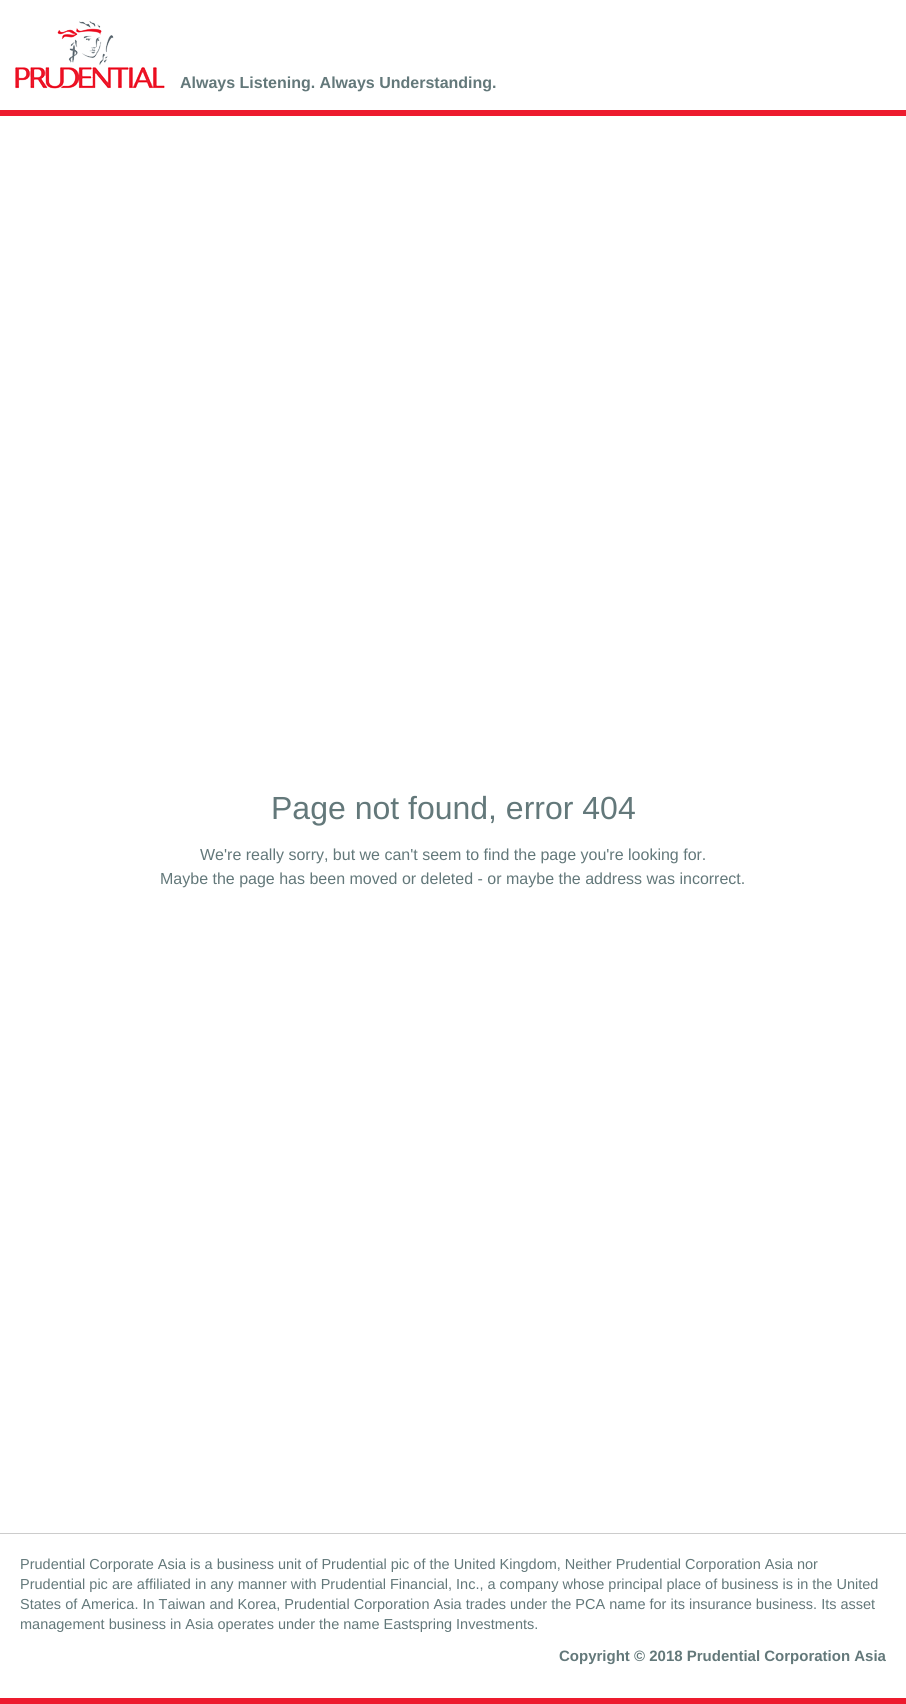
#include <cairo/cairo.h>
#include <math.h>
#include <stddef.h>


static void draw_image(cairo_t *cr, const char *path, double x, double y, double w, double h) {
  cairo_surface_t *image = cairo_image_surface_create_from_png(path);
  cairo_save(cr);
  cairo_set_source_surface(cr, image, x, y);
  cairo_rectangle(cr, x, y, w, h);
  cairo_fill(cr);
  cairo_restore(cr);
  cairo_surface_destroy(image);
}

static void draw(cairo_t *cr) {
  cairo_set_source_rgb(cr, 1, 1, 1);
  cairo_paint(cr);
  draw_image(cr, "images/1.png", 15, 21, 150, 68);
  cairo_set_source_rgb(cr, 237 / 255.0, 27 / 255.0, 46 / 255.0);
  cairo_rectangle(cr, 0, 110, 906, 6);
  cairo_fill(cr);
  cairo_set_source_rgb(cr, 204 / 255.0, 204 / 255.0, 204 / 255.0);
  cairo_rectangle(cr, 0, 1533, 906, 1);
  cairo_fill(cr);
  cairo_set_source_rgb(cr, 237 / 255.0, 27 / 255.0, 46 / 255.0);
  cairo_rectangle(cr, 0, 1698, 906, 6);
  cairo_fill(cr);
  cairo_select_font_face(cr, "Liberation Sans", CAIRO_FONT_SLANT_NORMAL, CAIRO_FONT_WEIGHT_BOLD);
  cairo_set_font_size(cr, 16);
  cairo_set_source_rgb(cr, 99 / 255.0, 120 / 255.0, 122 / 255.0);
  cairo_move_to(cr, 180, 88);
  cairo_show_text(cr, "Always Listening. Always Understanding.");
  cairo_select_font_face(cr, "Liberation Sans", CAIRO_FONT_SLANT_NORMAL, CAIRO_FONT_WEIGHT_NORMAL);
  cairo_set_font_size(cr, 32);
  cairo_move_to(cr, 271, 819);
  cairo_show_text(cr, "Page not found, error 404");
  cairo_set_font_size(cr, 16);
  cairo_move_to(cr, 200, 860);
  cairo_show_text(cr, "We're really sorry, but we can't seem to find the page you're looking for.");
  cairo_move_to(cr, 160, 884);
  cairo_show_text(cr, "Maybe the page has been moved or deleted - or maybe the address was incorrect.");
  cairo_set_font_size(cr, 14.5);
  cairo_move_to(cr, 20, 1569);
  cairo_show_text(cr, "Prudential Corporate Asia is a business unit of Prudential pic of the United Kingdom, Neither Prudential Corporation Asia nor");
  cairo_move_to(cr, 20, 1589);
  cairo_show_text(cr, "Prudential pic are affiliated in any manner with Prudential Financial, Inc., a company whose principal place of business is in the United");
  cairo_move_to(cr, 20, 1609);
  cairo_show_text(cr, "States of America. In Taiwan and Korea, Prudential Corporation Asia trades under the PCA name for its insurance business. Its asset");
  cairo_move_to(cr, 20, 1629);
  cairo_show_text(cr, "management business in Asia operates under the name Eastspring Investments.");
  cairo_select_font_face(cr, "Liberation Sans", CAIRO_FONT_SLANT_NORMAL, CAIRO_FONT_WEIGHT_BOLD);
  cairo_set_font_size(cr, 15);
  cairo_move_to(cr, 559, 1661);
  cairo_show_text(cr, "Copyright © 2018 Prudential Corporation Asia");
}

int main(void) {
  cairo_surface_t *surface = cairo_image_surface_create(CAIRO_FORMAT_RGB24, 906, 1704);
  cairo_t *cr = cairo_create(surface);
  cairo_font_options_t *options = cairo_font_options_create();
  cairo_font_options_set_hint_metrics(options, CAIRO_HINT_METRICS_OFF);
  cairo_font_options_set_hint_style(options, CAIRO_HINT_STYLE_NONE);
  cairo_set_font_options(cr, options);
  cairo_set_miter_limit(cr, 4);
  draw(cr);
  cairo_surface_write_to_png(surface, "out.png");
  cairo_font_options_destroy(options);
  cairo_destroy(cr);
  cairo_surface_destroy(surface);
  return 0;
}
